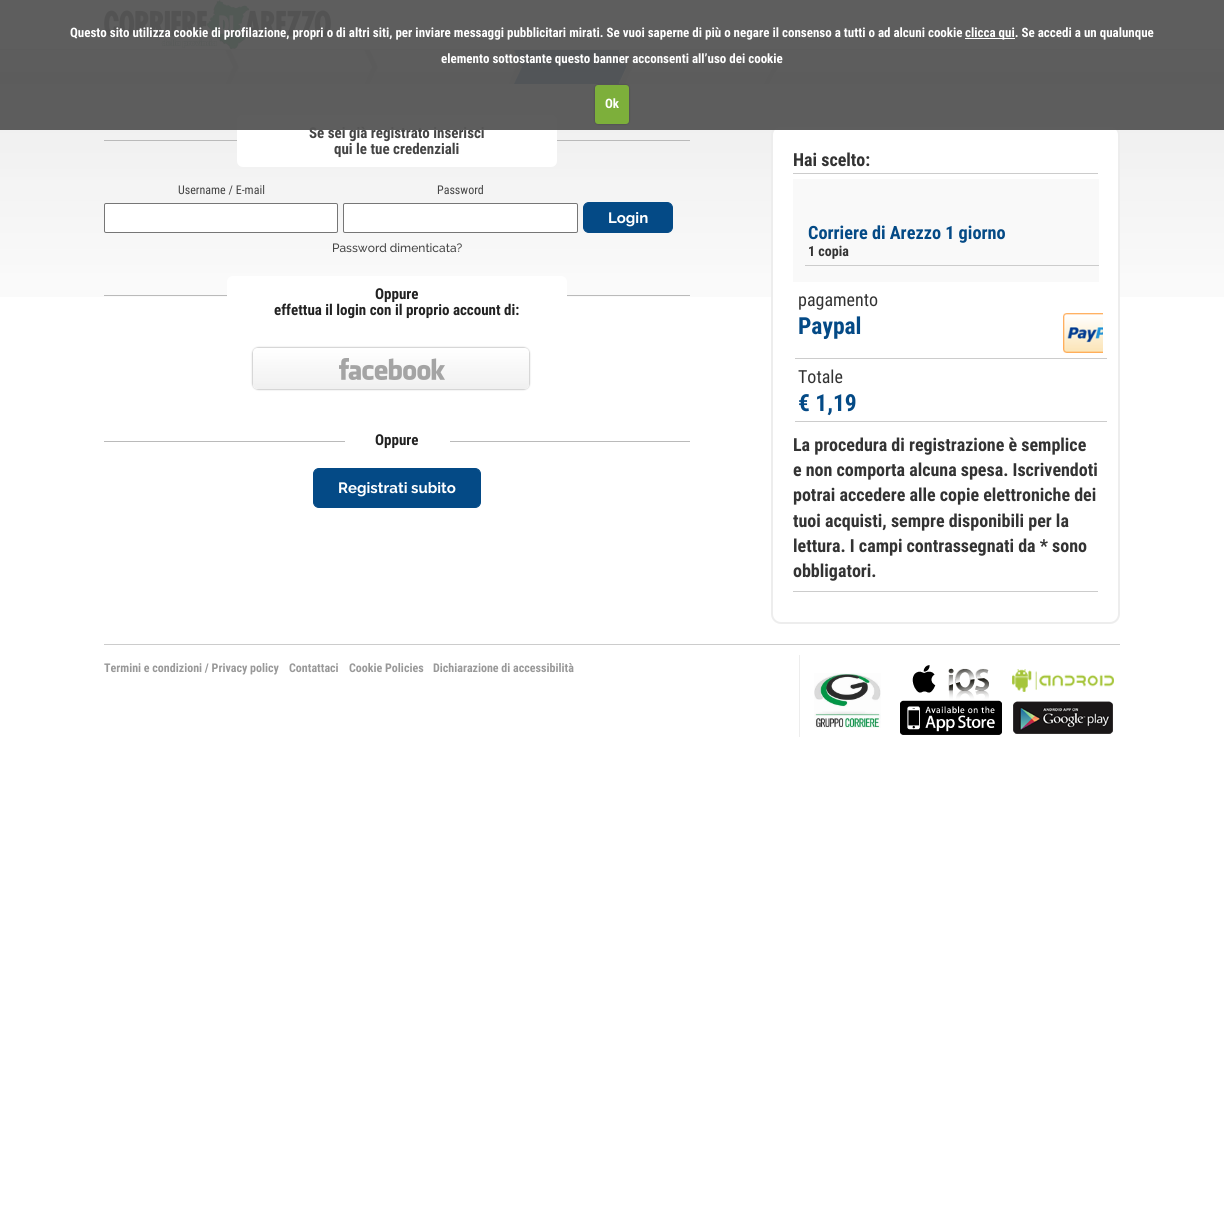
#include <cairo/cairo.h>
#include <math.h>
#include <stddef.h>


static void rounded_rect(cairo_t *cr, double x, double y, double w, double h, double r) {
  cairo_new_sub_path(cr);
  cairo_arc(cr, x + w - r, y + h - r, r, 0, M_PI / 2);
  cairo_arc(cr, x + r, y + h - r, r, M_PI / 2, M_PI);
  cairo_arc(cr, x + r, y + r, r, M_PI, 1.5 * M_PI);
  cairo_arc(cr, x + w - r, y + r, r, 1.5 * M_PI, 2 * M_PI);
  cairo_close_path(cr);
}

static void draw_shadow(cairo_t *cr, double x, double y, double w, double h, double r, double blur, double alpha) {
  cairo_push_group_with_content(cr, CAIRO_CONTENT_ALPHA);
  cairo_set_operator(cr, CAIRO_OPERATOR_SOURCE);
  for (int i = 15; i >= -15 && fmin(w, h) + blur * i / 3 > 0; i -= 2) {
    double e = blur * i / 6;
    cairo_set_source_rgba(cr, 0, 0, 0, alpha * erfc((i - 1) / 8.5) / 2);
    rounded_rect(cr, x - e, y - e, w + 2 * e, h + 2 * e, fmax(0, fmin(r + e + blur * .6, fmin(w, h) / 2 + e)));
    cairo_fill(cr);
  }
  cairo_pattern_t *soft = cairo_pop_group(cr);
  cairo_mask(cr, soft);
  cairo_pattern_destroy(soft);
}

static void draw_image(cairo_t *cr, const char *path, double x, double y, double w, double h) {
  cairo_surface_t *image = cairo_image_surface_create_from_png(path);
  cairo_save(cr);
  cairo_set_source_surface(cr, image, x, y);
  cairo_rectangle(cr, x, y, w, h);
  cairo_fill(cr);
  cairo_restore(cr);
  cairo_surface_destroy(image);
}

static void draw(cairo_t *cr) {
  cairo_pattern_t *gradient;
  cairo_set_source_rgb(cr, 1, 1, 1);
  cairo_paint(cr);
  draw_image(cr, "images/1.png", 104, 0, 227, 49);
  draw_image(cr, "images/2.png", 0, 50, 1224, 34);
  cairo_set_source_rgb(cr, 204 / 255.0, 204 / 255.0, 204 / 255.0);
  cairo_rectangle(cr, 0, 49, 1224, 1);
  cairo_fill(cr);
  draw_image(cr, "images/3.png", 225, 50, 14, 34);
  draw_image(cr, "images/3.png", 364, 50, 14, 34);
  cairo_set_source_rgb(cr, 4 / 255.0, 74 / 255.0, 134 / 255.0);
  cairo_rectangle(cr, 514, 50, 113, 34);
  cairo_fill(cr);
  draw_image(cr, "images/4.png", 508, 50, 14, 34);
  draw_image(cr, "images/5.png", 618, 50, 15, 34);
  draw_image(cr, "images/6.png", 763, 50, 15, 34);
  draw_image(cr, "images/7.png", 0, 84, 1224, 213);
  cairo_set_source_rgb(cr, 186 / 255.0, 186 / 255.0, 186 / 255.0);
  cairo_rectangle(cr, 104, 140, 586, 1);
  cairo_fill(cr);
  cairo_set_source_rgb(cr, 1, 1, 1);
  rounded_rect(cr, 237, 115, 320, 52, 6);
  cairo_fill(cr);
  rounded_rect(cr, 104.5, 203.5, 233, 29, 1.5);
  cairo_fill_preserve(cr);
  cairo_set_source_rgb(cr, 118 / 255.0, 118 / 255.0, 118 / 255.0);
  cairo_set_line_width(cr, 1);
  cairo_stroke(cr);
  cairo_set_source_rgb(cr, 1, 1, 1);
  rounded_rect(cr, 343.5, 203.5, 234, 29, 1.5);
  cairo_fill_preserve(cr);
  cairo_set_source_rgb(cr, 118 / 255.0, 118 / 255.0, 118 / 255.0);
  cairo_stroke(cr);
  cairo_set_source_rgb(cr, 4 / 255.0, 74 / 255.0, 134 / 255.0);
  rounded_rect(cr, 583.5, 202.5, 89, 30, 5.5);
  cairo_fill_preserve(cr);
  cairo_stroke(cr);
  cairo_set_source_rgb(cr, 186 / 255.0, 186 / 255.0, 186 / 255.0);
  cairo_rectangle(cr, 104, 295, 586, 1);
  cairo_fill(cr);
  cairo_set_source_rgb(cr, 1, 1, 1);
  rounded_rect(cr, 227, 276, 340, 52, 6);
  cairo_fill(cr);
  cairo_save(cr);
  cairo_set_fill_rule(cr, CAIRO_FILL_RULE_EVEN_ODD);
  cairo_new_path(cr);
  cairo_move_to(cr, 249, 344);
  cairo_line_to(cr, 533, 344);
  cairo_line_to(cr, 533, 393);
  cairo_line_to(cr, 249, 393);
  cairo_close_path(cr);
  cairo_move_to(cr, 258, 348);
  cairo_line_to(cr, 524, 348);
  cairo_curve_to(cr, 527, 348, 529, 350, 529, 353);
  cairo_line_to(cr, 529, 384);
  cairo_curve_to(cr, 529, 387, 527, 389, 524, 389);
  cairo_line_to(cr, 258, 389);
  cairo_curve_to(cr, 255, 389, 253, 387, 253, 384);
  cairo_line_to(cr, 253, 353);
  cairo_curve_to(cr, 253, 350, 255, 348, 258, 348);
  cairo_close_path(cr);
  cairo_clip(cr);
  cairo_set_source_rgb(cr, 136 / 255.0, 136 / 255.0, 136 / 255.0);
  draw_shadow(cr, 253, 348, 276, 41, 5, 1, 1);
  cairo_restore(cr);
  gradient = cairo_pattern_create_linear(391, 348, 391, 389);
  cairo_pattern_add_color_stop_rgba(gradient, 0, 232 / 255.0, 232 / 255.0, 232 / 255.0, 0);
  cairo_pattern_add_color_stop_rgba(gradient, 1, 232 / 255.0, 232 / 255.0, 232 / 255.0, 0.65);
  cairo_set_source(cr, gradient);
  cairo_pattern_destroy(gradient);
  rounded_rect(cr, 253, 348, 276, 41, 5);
  cairo_fill(cr);
  draw_image(cr, "images/8.png", 339, 358, 106, 22);
  cairo_set_source_rgb(cr, 186 / 255.0, 186 / 255.0, 186 / 255.0);
  cairo_rectangle(cr, 104, 441, 586, 1);
  cairo_fill(cr);
  cairo_set_source_rgb(cr, 1, 1, 1);
  rounded_rect(cr, 345, 422, 105, 36, 6);
  cairo_fill(cr);
  cairo_set_source_rgb(cr, 4 / 255.0, 74 / 255.0, 134 / 255.0);
  rounded_rect(cr, 313.5, 468.5, 167, 39, 5.5);
  cairo_fill_preserve(cr);
  cairo_stroke(cr);
  cairo_set_source_rgb(cr, 1, 1, 1);
  rounded_rect(cr, 772, 126, 347, 497, 9);
  cairo_fill_preserve(cr);
  cairo_set_source_rgb(cr, 237 / 255.0, 237 / 255.0, 237 / 255.0);
  cairo_set_line_width(cr, 2);
  cairo_stroke(cr);
  cairo_set_source_rgb(cr, 204 / 255.0, 204 / 255.0, 204 / 255.0);
  cairo_rectangle(cr, 793, 173, 305, 1);
  cairo_fill(cr);
  cairo_set_source_rgb(cr, 249 / 255.0, 249 / 255.0, 249 / 255.0);
  cairo_rectangle(cr, 793, 179, 306, 103);
  cairo_fill(cr);
  cairo_set_source_rgb(cr, 204 / 255.0, 204 / 255.0, 204 / 255.0);
  cairo_rectangle(cr, 805, 265, 294, 1);
  cairo_fill(cr);
  cairo_rectangle(cr, 795, 358, 312, 1);
  cairo_fill(cr);
  draw_image(cr, "images/9.png", 1063, 313, 40, 40);
  cairo_rectangle(cr, 795, 421, 312, 1);
  cairo_fill(cr);
  cairo_rectangle(cr, 793, 591, 305, 1);
  cairo_fill(cr);
  cairo_rectangle(cr, 104, 644, 1016, 1);
  cairo_fill(cr);
  cairo_set_source_rgb(cr, 237 / 255.0, 237 / 255.0, 237 / 255.0);
  cairo_rectangle(cr, 799, 655, 1, 82);
  cairo_fill(cr);
  draw_image(cr, "images/10.png", 814, 673, 67, 55);
  draw_image(cr, "images/11.png", 900, 665, 102, 70);
  draw_image(cr, "images/12.png", 1012, 669, 102, 65);
  cairo_select_font_face(cr, "Roboto Condensed", CAIRO_FONT_SLANT_NORMAL, CAIRO_FONT_WEIGHT_BOLD);
  cairo_set_font_size(cr, 15);
  cairo_set_source_rgb(cr, 68 / 255.0, 68 / 255.0, 68 / 255.0);
  cairo_move_to(cr, 309, 138);
  cairo_show_text(cr, "Se sei già registrato inserisci");
  cairo_set_source_rgba(cr, 86 / 255.0, 86 / 255.0, 86 / 255.0, 0.95);
  cairo_rectangle(cr, 0, 0, 1224, 130);
  cairo_fill(cr);
  cairo_set_source_rgb(cr, 0, 0, 0);
  draw_shadow(cr, 595, 85, 34, 39, 3, 1, 0.25);
  cairo_set_source_rgb(cr, 125 / 255.0, 175 / 255.0, 59 / 255.0);
  rounded_rect(cr, 595, 85, 34, 39, 3);
  cairo_fill(cr);
  cairo_set_font_size(cr, 13);
  cairo_set_source_rgb(cr, 1, 1, 1);
  cairo_move_to(cr, 605, 108);
  cairo_show_text(cr, "Ok");
  cairo_move_to(cr, 441, 63);
  cairo_show_text(cr, "elemento sottostante questo banner acconsenti all’uso dei cookie");
  cairo_rectangle(cr, 965, 38, 50, 1);
  cairo_fill(cr);
  cairo_move_to(cr, 965, 37);
  cairo_show_text(cr, "clicca qui. Se accedi a un qualunque");
  cairo_move_to(cr, 70, 37);
  cairo_show_text(cr, "Questo sito utilizza cookie di profilazione, propri o di altri siti, per inviare messaggi pubblicitari mirati. Se vuoi saperne di più o negare il consenso a tutti o ad alcuni cookie");
  cairo_set_font_size(cr, 15);
  cairo_set_source_rgb(cr, 68 / 255.0, 68 / 255.0, 68 / 255.0);
  cairo_move_to(cr, 334, 154);
  cairo_show_text(cr, "qui le tue credenziali");
  cairo_select_font_face(cr, "Roboto Condensed", CAIRO_FONT_SLANT_NORMAL, CAIRO_FONT_WEIGHT_NORMAL);
  cairo_set_font_size(cr, 12);
  cairo_move_to(cr, 178, 194);
  cairo_show_text(cr, "Username / E-mail");
  cairo_move_to(cr, 437, 194);
  cairo_show_text(cr, "Password");
  cairo_select_font_face(cr, "Raleway", CAIRO_FONT_SLANT_NORMAL, CAIRO_FONT_WEIGHT_BOLD);
  cairo_set_font_size(cr, 15);
  cairo_set_source_rgb(cr, 1, 1, 1);
  cairo_move_to(cr, 608, 223);
  cairo_show_text(cr, "Login");
  cairo_select_font_face(cr, "Raleway Medium", CAIRO_FONT_SLANT_NORMAL, CAIRO_FONT_WEIGHT_NORMAL);
  cairo_set_font_size(cr, 12);
  cairo_set_source_rgb(cr, 68 / 255.0, 68 / 255.0, 68 / 255.0);
  cairo_move_to(cr, 332, 252);
  cairo_show_text(cr, "Password dimenticata?");
  cairo_select_font_face(cr, "Roboto Condensed", CAIRO_FONT_SLANT_NORMAL, CAIRO_FONT_WEIGHT_BOLD);
  cairo_set_font_size(cr, 15);
  cairo_set_source_rgb(cr, 34 / 255.0, 34 / 255.0, 34 / 255.0);
  cairo_move_to(cr, 375, 299);
  cairo_show_text(cr, "Oppure");
  cairo_move_to(cr, 274, 315);
  cairo_show_text(cr, "effettua il login con il proprio account di:");
  cairo_move_to(cr, 375, 445);
  cairo_show_text(cr, "Oppure");
  cairo_select_font_face(cr, "Raleway", CAIRO_FONT_SLANT_NORMAL, CAIRO_FONT_WEIGHT_BOLD);
  cairo_set_source_rgb(cr, 1, 1, 1);
  cairo_move_to(cr, 338, 493);
  cairo_show_text(cr, "Registrati subito");
  cairo_select_font_face(cr, "Roboto Condensed", CAIRO_FONT_SLANT_NORMAL, CAIRO_FONT_WEIGHT_BOLD);
  cairo_set_font_size(cr, 18);
  cairo_set_source_rgb(cr, 51 / 255.0, 51 / 255.0, 51 / 255.0);
  cairo_move_to(cr, 793, 166);
  cairo_show_text(cr, "Hai scelto:");
  cairo_set_font_size(cr, 18.25);
  cairo_set_source_rgb(cr, 4 / 255.0, 74 / 255.0, 134 / 255.0);
  cairo_move_to(cr, 808, 239);
  cairo_show_text(cr, "Corriere di Arezzo 1 giorno");
  cairo_set_font_size(cr, 14);
  cairo_set_source_rgb(cr, 51 / 255.0, 51 / 255.0, 51 / 255.0);
  cairo_move_to(cr, 808, 256);
  cairo_show_text(cr, "1 copia");
  cairo_select_font_face(cr, "Roboto Condensed", CAIRO_FONT_SLANT_NORMAL, CAIRO_FONT_WEIGHT_NORMAL);
  cairo_set_font_size(cr, 18);
  cairo_move_to(cr, 798, 306);
  cairo_show_text(cr, "pagamento");
  cairo_select_font_face(cr, "Roboto Condensed", CAIRO_FONT_SLANT_NORMAL, CAIRO_FONT_WEIGHT_BOLD);
  cairo_set_font_size(cr, 23.5);
  cairo_set_source_rgb(cr, 4 / 255.0, 74 / 255.0, 134 / 255.0);
  cairo_move_to(cr, 798, 334);
  cairo_show_text(cr, "Paypal");
  cairo_select_font_face(cr, "Roboto Condensed", CAIRO_FONT_SLANT_NORMAL, CAIRO_FONT_WEIGHT_NORMAL);
  cairo_set_font_size(cr, 18);
  cairo_set_source_rgb(cr, 51 / 255.0, 51 / 255.0, 51 / 255.0);
  cairo_move_to(cr, 798, 383);
  cairo_show_text(cr, "Totale");
  cairo_select_font_face(cr, "Roboto Condensed", CAIRO_FONT_SLANT_NORMAL, CAIRO_FONT_WEIGHT_BOLD);
  cairo_set_font_size(cr, 23.5);
  cairo_set_source_rgb(cr, 4 / 255.0, 74 / 255.0, 134 / 255.0);
  cairo_move_to(cr, 798, 411);
  cairo_show_text(cr, "€ 1,19");
  cairo_set_font_size(cr, 18);
  cairo_set_source_rgb(cr, 51 / 255.0, 51 / 255.0, 51 / 255.0);
  cairo_move_to(cr, 793, 451);
  cairo_show_text(cr, "La procedura di registrazione è semplice");
  cairo_move_to(cr, 793, 476);
  cairo_show_text(cr, "e non comporta alcuna spesa. Iscrivendoti");
  cairo_move_to(cr, 793, 501);
  cairo_show_text(cr, "potrai accedere alle copie elettroniche dei");
  cairo_move_to(cr, 793, 527);
  cairo_show_text(cr, "tuoi acquisti, sempre disponibili per la");
  cairo_move_to(cr, 793, 552);
  cairo_show_text(cr, "lettura. I campi contrassegnati da * sono");
  cairo_move_to(cr, 793, 577);
  cairo_show_text(cr, "obbligatori.");
  cairo_set_font_size(cr, 12);
  cairo_set_source_rgb(cr, 153 / 255.0, 153 / 255.0, 153 / 255.0);
  cairo_move_to(cr, 104, 672);
  cairo_show_text(cr, "Termini e condizioni / Privacy policy");
  cairo_move_to(cr, 289, 672);
  cairo_show_text(cr, "Contattaci");
  cairo_move_to(cr, 349, 672);
  cairo_show_text(cr, "Cookie Policies");
  cairo_move_to(cr, 433, 672);
  cairo_show_text(cr, "Dichiarazione di accessibilità");
}

int main(void) {
  cairo_surface_t *surface = cairo_image_surface_create(CAIRO_FORMAT_RGB24, 1224, 1224);
  cairo_t *cr = cairo_create(surface);
  cairo_font_options_t *options = cairo_font_options_create();
  cairo_font_options_set_hint_metrics(options, CAIRO_HINT_METRICS_OFF);
  cairo_font_options_set_hint_style(options, CAIRO_HINT_STYLE_NONE);
  cairo_set_font_options(cr, options);
  cairo_set_miter_limit(cr, 4);
  draw(cr);
  cairo_surface_write_to_png(surface, "out.png");
  cairo_font_options_destroy(options);
  cairo_destroy(cr);
  cairo_surface_destroy(surface);
  return 0;
}
